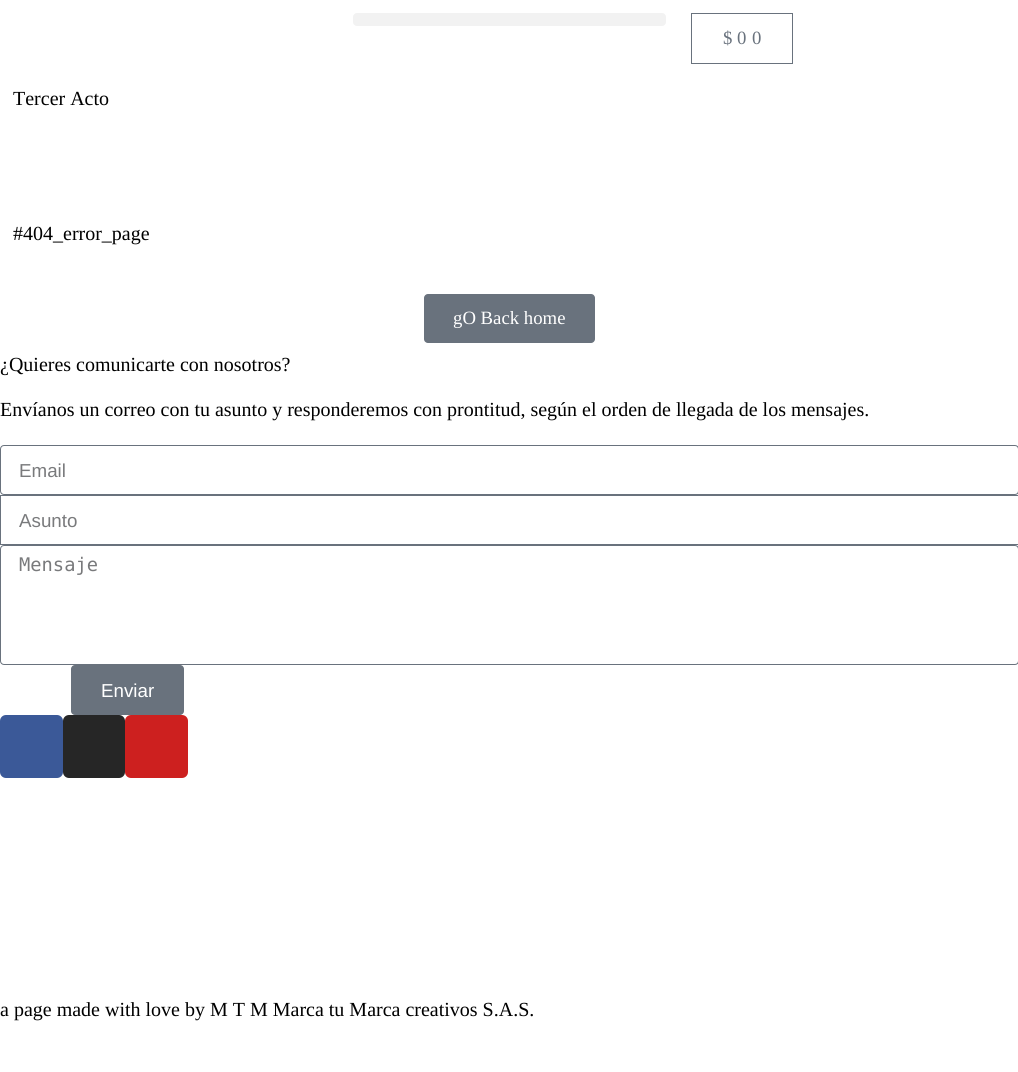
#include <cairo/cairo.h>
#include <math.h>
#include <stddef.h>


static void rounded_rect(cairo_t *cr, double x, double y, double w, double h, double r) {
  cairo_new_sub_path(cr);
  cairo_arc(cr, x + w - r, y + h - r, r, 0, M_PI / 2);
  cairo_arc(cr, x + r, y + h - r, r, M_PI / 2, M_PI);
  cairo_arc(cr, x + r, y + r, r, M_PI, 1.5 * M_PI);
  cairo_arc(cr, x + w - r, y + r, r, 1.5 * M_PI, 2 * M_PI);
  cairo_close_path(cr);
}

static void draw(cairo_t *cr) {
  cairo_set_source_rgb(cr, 1, 1, 1);
  cairo_paint(cr);
  cairo_set_source_rgb(cr, 242 / 255.0, 242 / 255.0, 242 / 255.0);
  rounded_rect(cr, 353, 13, 313, 13, 4);
  cairo_fill(cr);
  cairo_rectangle(cr, 691.5, 13.5, 101, 50);
  cairo_set_source_rgb(cr, 105 / 255.0, 114 / 255.0, 125 / 255.0);
  cairo_set_line_width(cr, 1);
  cairo_stroke(cr);
  rounded_rect(cr, 424, 294, 171, 49, 4);
  cairo_fill(cr);
  rounded_rect(cr, 0.5, 445.5, 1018, 49, 3.5);
  cairo_stroke(cr);
  cairo_rectangle(cr, 0.5, 495.5, 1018, 49);
  cairo_stroke(cr);
  rounded_rect(cr, 0.5, 545.5, 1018, 119, 3.5);
  cairo_stroke(cr);
  rounded_rect(cr, 71, 665, 113, 50, 4);
  cairo_fill(cr);
  cairo_set_source_rgb(cr, 59 / 255.0, 89 / 255.0, 152 / 255.0);
  rounded_rect(cr, 0, 715, 63, 63, 6);
  cairo_fill(cr);
  cairo_set_source_rgb(cr, 38 / 255.0, 38 / 255.0, 38 / 255.0);
  rounded_rect(cr, 63, 715, 62, 63, 6);
  cairo_fill(cr);
  cairo_set_source_rgb(cr, 205 / 255.0, 32 / 255.0, 31 / 255.0);
  rounded_rect(cr, 125, 715, 63, 63, 6);
  cairo_fill(cr);
  cairo_select_font_face(cr, "Liberation Serif", CAIRO_FONT_SLANT_NORMAL, CAIRO_FONT_WEIGHT_NORMAL);
  cairo_set_font_size(cr, 18.75);
  cairo_set_source_rgb(cr, 105 / 255.0, 114 / 255.0, 125 / 255.0);
  cairo_move_to(cr, 723, 44);
  cairo_show_text(cr, "$ 0");
  cairo_move_to(cr, 752, 44);
  cairo_show_text(cr, "0");
  cairo_set_font_size(cr, 20);
  cairo_set_source_rgb(cr, 0, 0, 0);
  cairo_move_to(cr, 13, 105);
  cairo_show_text(cr, "Tercer Acto");
  cairo_move_to(cr, 13, 240);
  cairo_show_text(cr, "#404_error_page");
  cairo_set_font_size(cr, 18.75);
  cairo_set_source_rgb(cr, 1, 1, 1);
  cairo_move_to(cr, 453, 324);
  cairo_show_text(cr, "gO Back home");
  cairo_set_font_size(cr, 20);
  cairo_set_source_rgb(cr, 0, 0, 0);
  cairo_move_to(cr, 0, 371);
  cairo_show_text(cr, "¿Quieres comunicarte con nosotros?");
  cairo_move_to(cr, 0, 416);
  cairo_show_text(cr, "Envíanos un correo con tu asunto y responderemos con prontitud, según el orden de llegada de los mensajes.");
  cairo_select_font_face(cr, "Liberation Sans", CAIRO_FONT_SLANT_NORMAL, CAIRO_FONT_WEIGHT_NORMAL);
  cairo_set_font_size(cr, 18.75);
  cairo_set_source_rgb(cr, 121 / 255.0, 122 / 255.0, 124 / 255.0);
  cairo_move_to(cr, 19, 477);
  cairo_show_text(cr, "Email");
  cairo_move_to(cr, 19, 527);
  cairo_show_text(cr, "Asunto");
  cairo_select_font_face(cr, "DejaVu Sans Mono", CAIRO_FONT_SLANT_NORMAL, CAIRO_FONT_WEIGHT_NORMAL);
  cairo_move_to(cr, 19, 571);
  cairo_show_text(cr, "Mensaje");
  cairo_select_font_face(cr, "Liberation Sans", CAIRO_FONT_SLANT_NORMAL, CAIRO_FONT_WEIGHT_NORMAL);
  cairo_set_source_rgb(cr, 1, 1, 1);
  cairo_move_to(cr, 101, 697);
  cairo_show_text(cr, "Enviar");
  cairo_select_font_face(cr, "Liberation Serif", CAIRO_FONT_SLANT_NORMAL, CAIRO_FONT_WEIGHT_NORMAL);
  cairo_set_font_size(cr, 20);
  cairo_set_source_rgb(cr, 0, 0, 0);
  cairo_move_to(cr, 0, 1016);
  cairo_show_text(cr, "a page made with love by M T M Marca tu Marca creativos S.A.S.");
}

int main(void) {
  cairo_surface_t *surface = cairo_image_surface_create(CAIRO_FORMAT_RGB24, 1018, 1072);
  cairo_t *cr = cairo_create(surface);
  cairo_font_options_t *options = cairo_font_options_create();
  cairo_font_options_set_hint_metrics(options, CAIRO_HINT_METRICS_OFF);
  cairo_font_options_set_hint_style(options, CAIRO_HINT_STYLE_NONE);
  cairo_set_font_options(cr, options);
  cairo_set_miter_limit(cr, 4);
  draw(cr);
  cairo_surface_write_to_png(surface, "out.png");
  cairo_font_options_destroy(options);
  cairo_destroy(cr);
  cairo_surface_destroy(surface);
  return 0;
}
